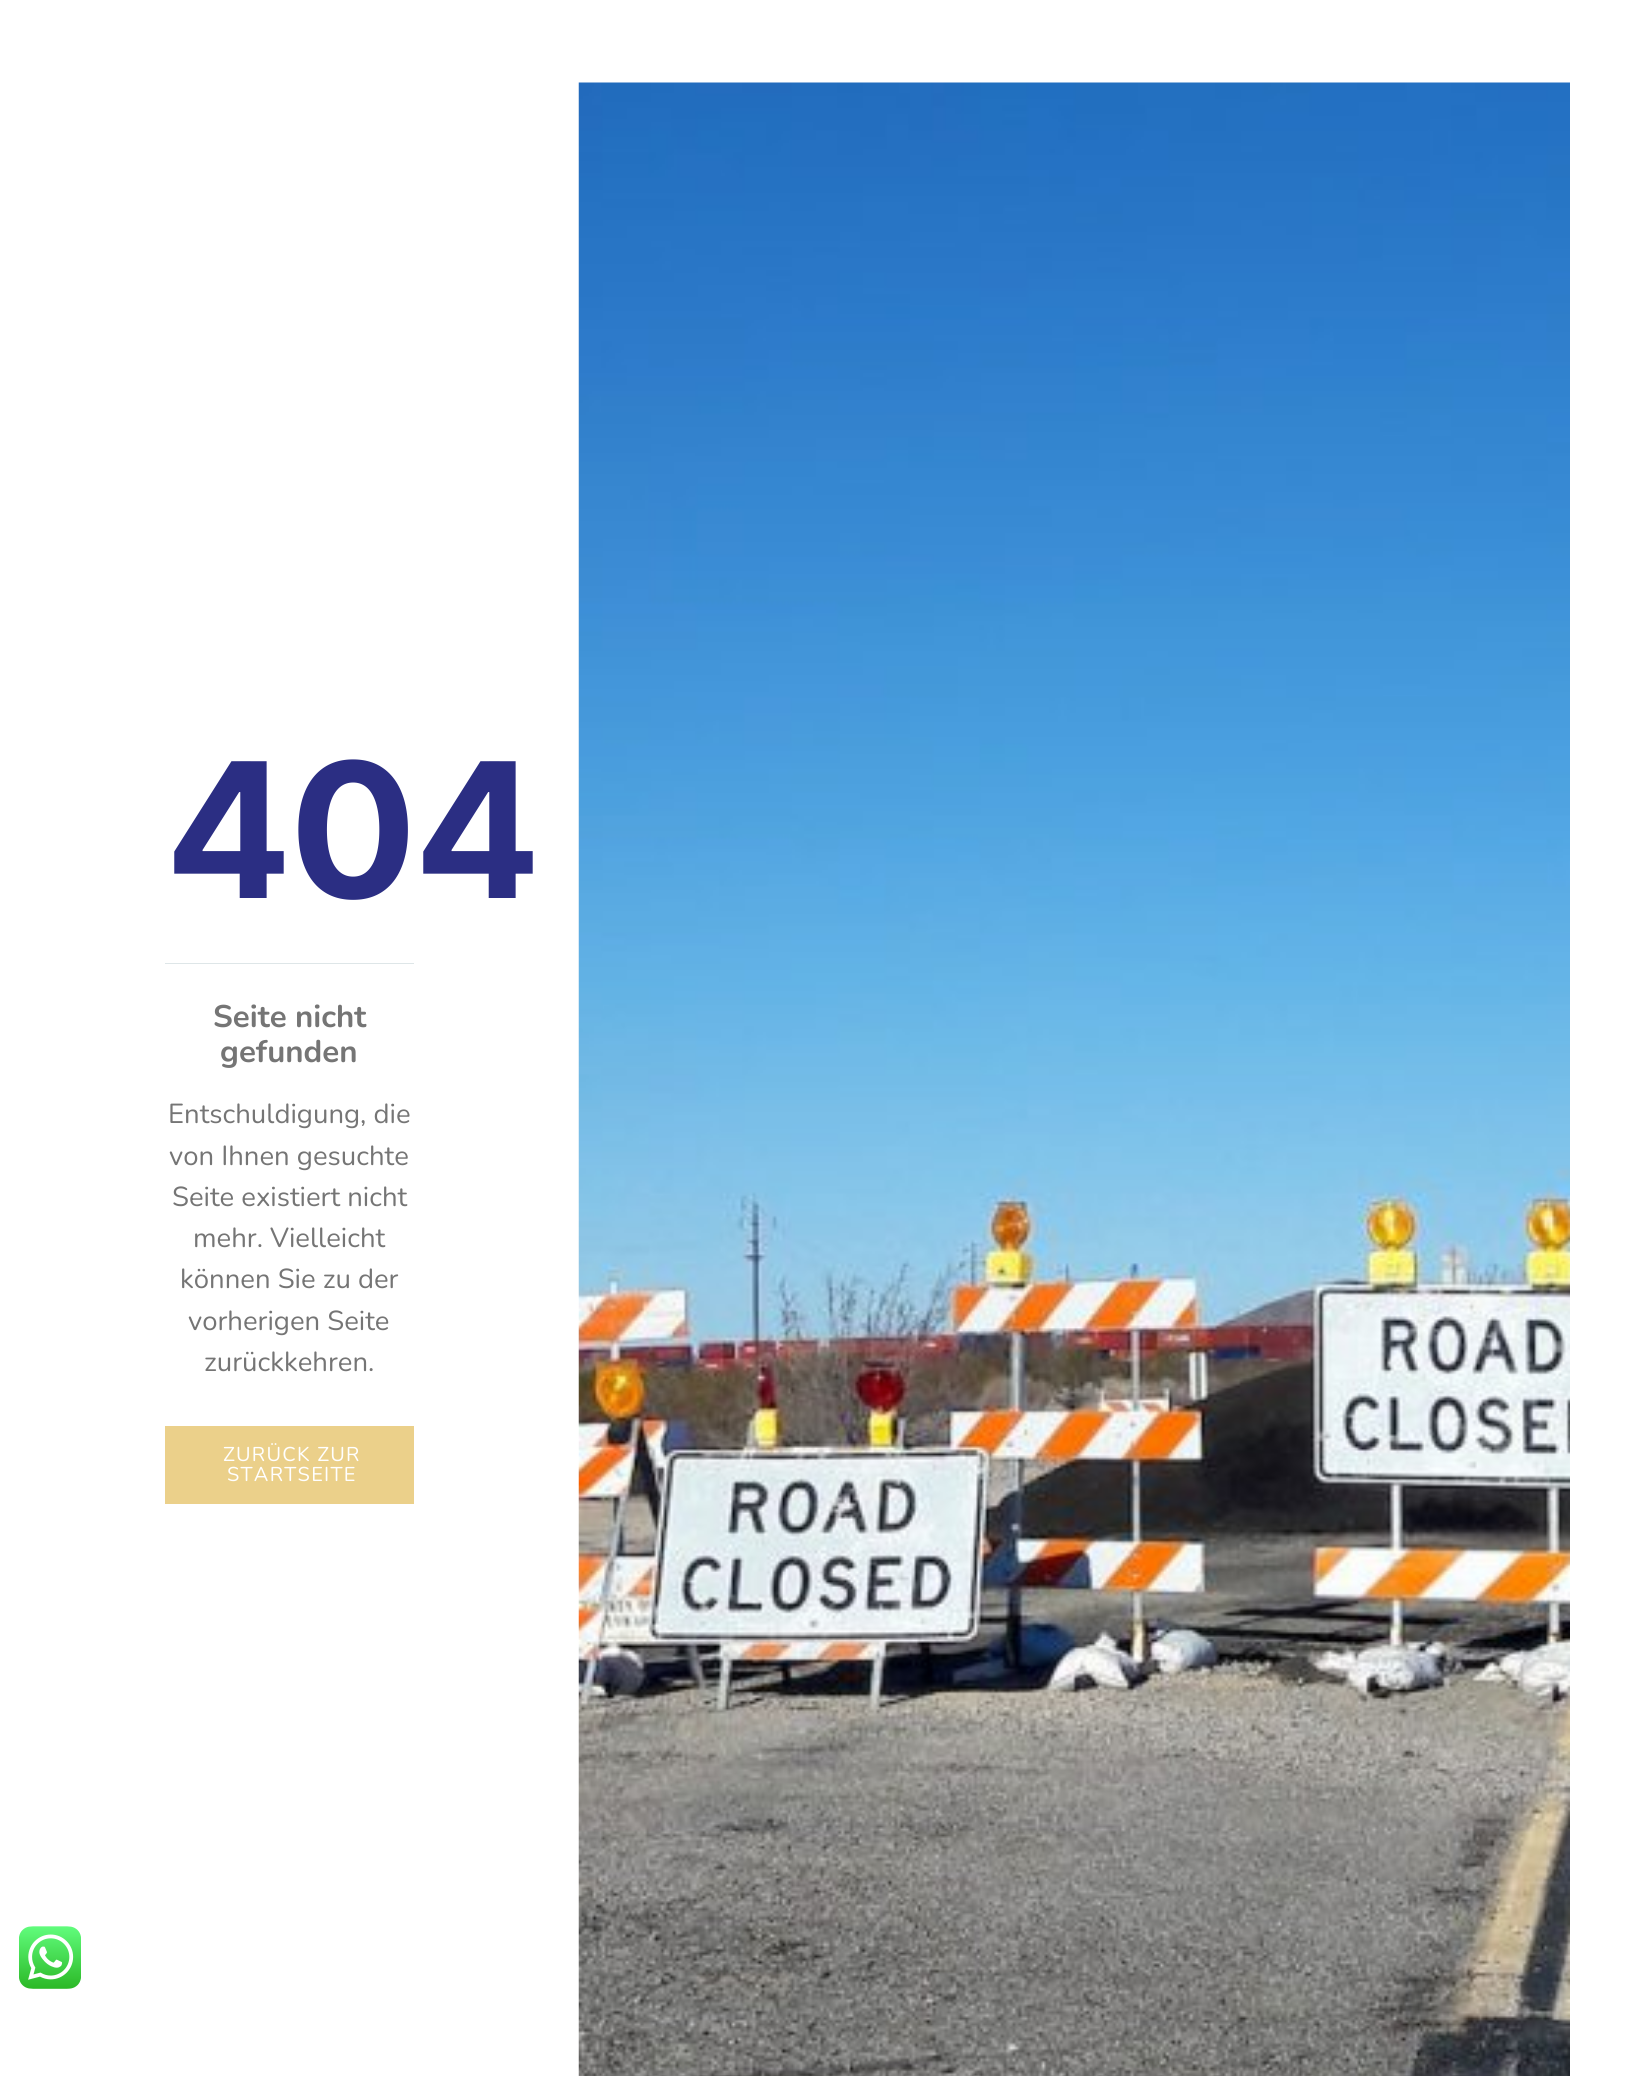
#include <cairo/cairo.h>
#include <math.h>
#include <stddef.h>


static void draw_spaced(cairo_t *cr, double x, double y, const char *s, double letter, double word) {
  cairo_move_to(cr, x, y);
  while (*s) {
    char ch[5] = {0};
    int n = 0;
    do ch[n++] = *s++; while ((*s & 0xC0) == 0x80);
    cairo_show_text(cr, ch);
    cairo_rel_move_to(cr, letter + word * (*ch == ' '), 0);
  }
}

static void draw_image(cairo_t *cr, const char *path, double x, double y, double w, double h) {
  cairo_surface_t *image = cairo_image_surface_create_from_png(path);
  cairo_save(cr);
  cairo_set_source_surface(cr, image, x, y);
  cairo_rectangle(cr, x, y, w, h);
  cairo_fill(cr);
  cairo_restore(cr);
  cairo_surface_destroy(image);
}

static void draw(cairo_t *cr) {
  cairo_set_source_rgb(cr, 1, 1, 1);
  cairo_paint(cr);
  cairo_set_source_rgb(cr, 222 / 255.0, 230 / 255.0, 232 / 255.0);
  cairo_rectangle(cr, 165, 963, 249, 1);
  cairo_fill(cr);
  cairo_set_source_rgb(cr, 235 / 255.0, 208 / 255.0, 138 / 255.0);
  cairo_rectangle(cr, 165, 1426, 249, 78);
  cairo_fill(cr);
  draw_image(cr, "images/1.png", 578, 82, 992, 1994);
  draw_image(cr, "images/2.png", 19, 1926, 62, 63);
  cairo_select_font_face(cr, "Inter", CAIRO_FONT_SLANT_NORMAL, CAIRO_FONT_WEIGHT_BOLD);
  cairo_set_font_size(cr, 188);
  cairo_set_source_rgb(cr, 43 / 255.0, 46 / 255.0, 131 / 255.0);
  draw_spaced(cr, 165, 898, "404", -2.5, 0);
  cairo_select_font_face(cr, "Nunito", CAIRO_FONT_SLANT_NORMAL, CAIRO_FONT_WEIGHT_BOLD);
  cairo_set_font_size(cr, 31.25);
  cairo_set_source_rgb(cr, 117 / 255.0, 117 / 255.0, 117 / 255.0);
  cairo_move_to(cr, 213, 1027);
  cairo_show_text(cr, "Seite nicht");
  cairo_move_to(cr, 220, 1062);
  cairo_show_text(cr, "gefunden");
  cairo_select_font_face(cr, "Nunito ExtraLight", CAIRO_FONT_SLANT_NORMAL, CAIRO_FONT_WEIGHT_NORMAL);
  cairo_set_font_size(cr, 27.5);
  cairo_move_to(cr, 168, 1123);
  cairo_show_text(cr, "Entschuldigung, die");
  cairo_move_to(cr, 169, 1165);
  cairo_show_text(cr, "von Ihnen gesuchte");
  cairo_move_to(cr, 172, 1206);
  cairo_show_text(cr, "Seite existiert nicht");
  cairo_move_to(cr, 193, 1247);
  cairo_show_text(cr, "mehr. Vielleicht");
  cairo_move_to(cr, 180, 1288);
  cairo_show_text(cr, "können Sie zu der");
  cairo_move_to(cr, 188, 1330);
  cairo_show_text(cr, "vorherigen Seite");
  cairo_move_to(cr, 204, 1371);
  cairo_show_text(cr, "zurückkehren.");
  cairo_set_font_size(cr, 20);
  cairo_set_source_rgb(cr, 1, 1, 1);
  draw_spaced(cr, 223, 1461, "ZURÜCK ZUR", 1.25, 0);
  draw_spaced(cr, 227, 1481, "STARTSEITE", 1.25, 0);
}

int main(void) {
  cairo_surface_t *surface = cairo_image_surface_create(CAIRO_FORMAT_RGB24, 1652, 2076);
  cairo_t *cr = cairo_create(surface);
  cairo_font_options_t *options = cairo_font_options_create();
  cairo_font_options_set_hint_metrics(options, CAIRO_HINT_METRICS_OFF);
  cairo_font_options_set_hint_style(options, CAIRO_HINT_STYLE_NONE);
  cairo_set_font_options(cr, options);
  cairo_set_miter_limit(cr, 4);
  draw(cr);
  cairo_surface_write_to_png(surface, "out.png");
  cairo_font_options_destroy(options);
  cairo_destroy(cr);
  cairo_surface_destroy(surface);
  return 0;
}
